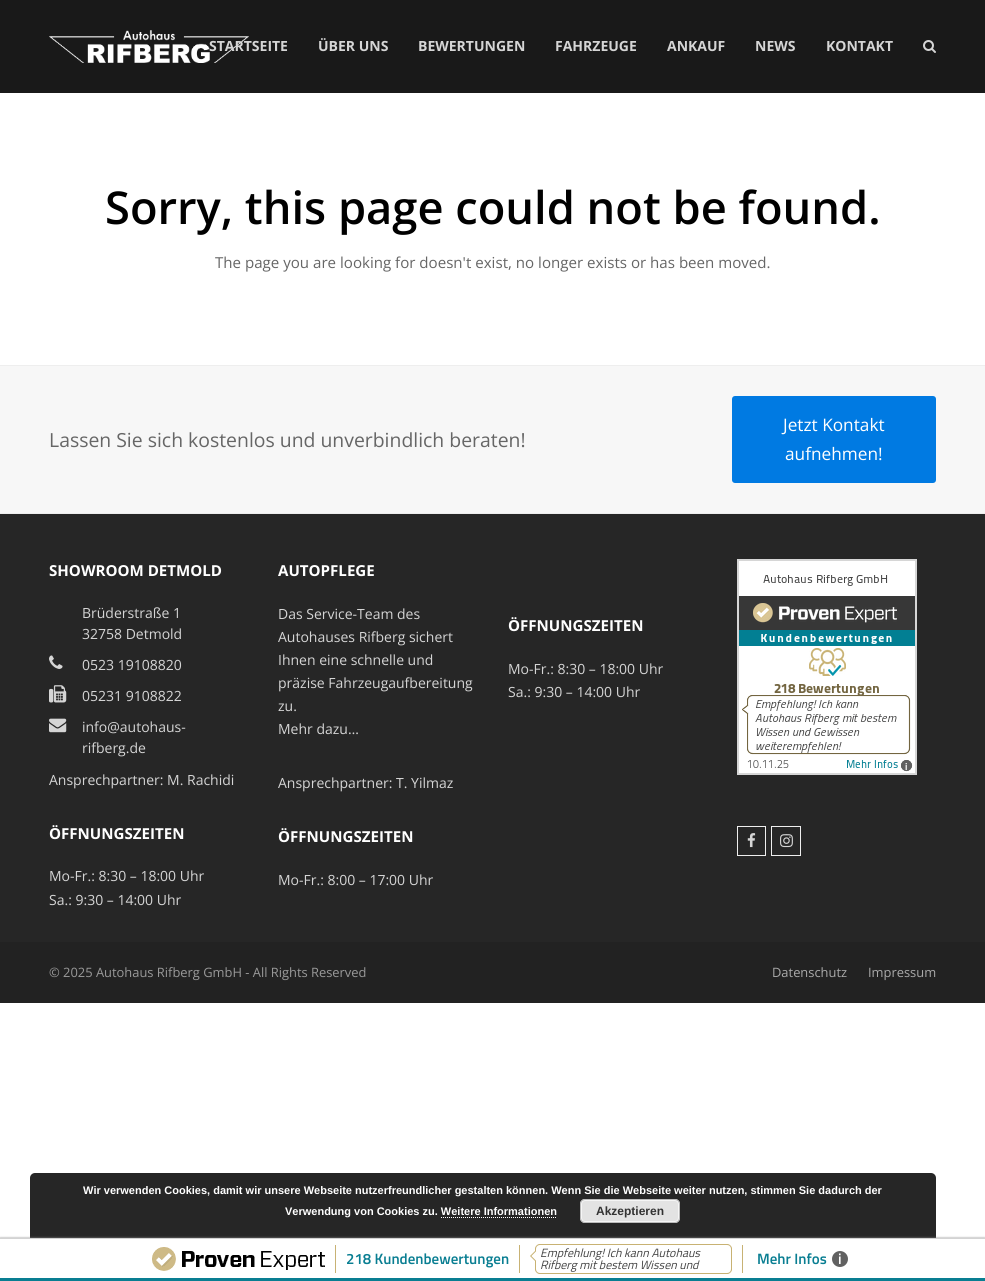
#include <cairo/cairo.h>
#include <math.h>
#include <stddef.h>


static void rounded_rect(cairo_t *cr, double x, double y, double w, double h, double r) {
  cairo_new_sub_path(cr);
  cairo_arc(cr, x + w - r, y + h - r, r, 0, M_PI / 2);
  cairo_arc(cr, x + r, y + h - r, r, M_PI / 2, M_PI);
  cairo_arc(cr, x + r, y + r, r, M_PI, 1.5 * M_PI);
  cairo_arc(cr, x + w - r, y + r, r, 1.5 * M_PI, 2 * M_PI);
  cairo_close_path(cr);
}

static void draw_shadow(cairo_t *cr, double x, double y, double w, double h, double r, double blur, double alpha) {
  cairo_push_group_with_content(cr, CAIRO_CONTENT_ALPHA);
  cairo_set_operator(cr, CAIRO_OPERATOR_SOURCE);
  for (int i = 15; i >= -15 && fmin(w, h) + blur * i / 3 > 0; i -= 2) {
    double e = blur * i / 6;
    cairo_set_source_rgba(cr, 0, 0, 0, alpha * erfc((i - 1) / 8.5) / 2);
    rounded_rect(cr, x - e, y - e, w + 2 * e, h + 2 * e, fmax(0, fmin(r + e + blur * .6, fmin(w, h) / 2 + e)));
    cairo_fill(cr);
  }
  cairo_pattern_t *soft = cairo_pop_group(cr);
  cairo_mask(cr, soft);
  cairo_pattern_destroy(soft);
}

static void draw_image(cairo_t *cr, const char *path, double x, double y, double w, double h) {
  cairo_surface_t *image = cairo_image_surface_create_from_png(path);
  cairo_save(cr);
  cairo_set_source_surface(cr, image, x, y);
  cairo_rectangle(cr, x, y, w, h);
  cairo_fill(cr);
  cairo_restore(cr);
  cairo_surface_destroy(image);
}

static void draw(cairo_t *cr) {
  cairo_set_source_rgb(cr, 1, 1, 1);
  cairo_paint(cr);
  cairo_set_source_rgb(cr, 25 / 255.0, 25 / 255.0, 25 / 255.0);
  cairo_rectangle(cr, 0, 0, 985, 93);
  cairo_fill(cr);
  draw_image(cr, "images/1.png", 49, 30, 200, 33);
  draw_image(cr, "images/2.png", 923, 40, 13, 13);
  cairo_set_source_rgb(cr, 247 / 255.0, 247 / 255.0, 247 / 255.0);
  cairo_rectangle(cr, 0, 366, 985, 147);
  cairo_fill(cr);
  cairo_set_source_rgb(cr, 238 / 255.0, 238 / 255.0, 238 / 255.0);
  cairo_rectangle(cr, 0, 365, 985, 1);
  cairo_fill(cr);
  cairo_rectangle(cr, 0, 513, 985, 1);
  cairo_fill(cr);
  cairo_set_source_rgb(cr, 0, 122 / 255.0, 226 / 255.0);
  rounded_rect(cr, 732, 396, 204, 87, 3);
  cairo_fill(cr);
  cairo_set_source_rgb(cr, 38 / 255.0, 38 / 255.0, 38 / 255.0);
  cairo_rectangle(cr, 0, 514, 985, 428);
  cairo_fill(cr);
  draw_image(cr, "images/3.png", 49, 655, 14, 14);
  draw_image(cr, "images/4.png", 49, 685, 18, 18);
  draw_image(cr, "images/5.png", 49, 718, 18, 15);
  draw_image(cr, "images/6.png", 737, 559, 180, 216);
  cairo_rectangle(cr, 737.5, 826.5, 28, 29);
  cairo_set_source_rgb(cr, 238 / 255.0, 238 / 255.0, 238 / 255.0);
  cairo_set_line_width(cr, 1);
  cairo_stroke(cr);
  draw_image(cr, "images/7.png", 747, 833, 9, 15);
  cairo_rectangle(cr, 771.5, 826.5, 29, 29);
  cairo_stroke(cr);
  draw_image(cr, "images/8.png", 780, 834, 13, 14);
  cairo_set_source_rgb(cr, 34 / 255.0, 34 / 255.0, 34 / 255.0);
  cairo_rectangle(cr, 0, 942, 985, 61);
  cairo_fill(cr);
  cairo_set_source_rgb(cr, 38 / 255.0, 38 / 255.0, 38 / 255.0);
  rounded_rect(cr, 30, 1173, 906, 78, 5);
  cairo_fill(cr);
  cairo_set_source_rgb(cr, 227 / 255.0, 227 / 255.0, 227 / 255.0);
  rounded_rect(cr, 580, 1199, 100, 24, 5);
  cairo_fill(cr);
  rounded_rect(cr, 581.5, 1200.5, 97, 21, 3.5);
  cairo_set_source_rgb(cr, 246 / 255.0, 246 / 255.0, 246 / 255.0);
  cairo_stroke(cr);
  rounded_rect(cr, 580.5, 1199.5, 99, 23, 4.5);
  cairo_set_source_rgb(cr, 187 / 255.0, 187 / 255.0, 187 / 255.0);
  cairo_stroke(cr);
  cairo_new_path(cr);
  cairo_move_to(cr, 441, 1217.5);
  cairo_line_to(cr, 557, 1217.5);
  cairo_set_source_rgb(cr, 1, 1, 1);
  cairo_set_dash(cr, (double[]){1, 1}, 2, 0);
  cairo_stroke(cr);
  cairo_set_source_rgb(cr, 136 / 255.0, 136 / 255.0, 136 / 255.0);
  draw_shadow(cr, 0, 1238, 985, 43, 0, 1, 1);
  cairo_set_source_rgb(cr, 1, 1, 1);
  cairo_rectangle(cr, 0, 1239, 985, 39);
  cairo_fill(cr);
  cairo_set_source_rgb(cr, 211 / 255.0, 211 / 255.0, 211 / 255.0);
  cairo_rectangle(cr, 0, 1238, 985, 1);
  cairo_fill(cr);
  draw_image(cr, "images/9.png", 152, 1247, 173, 24);
  cairo_set_source_rgb(cr, 200 / 255.0, 178 / 255.0, 116 / 255.0);
  cairo_rectangle(cr, 335, 1245, 1, 28);
  cairo_fill(cr);
  cairo_rectangle(cr, 519, 1245, 1, 28);
  cairo_fill(cr);
  draw_image(cr, "images/10.png", 530, 1244, 202, 30);
  cairo_rectangle(cr, 742, 1245, 1, 28);
  cairo_fill(cr);
  cairo_set_source_rgb(cr, 97 / 255.0, 97 / 255.0, 97 / 255.0);
  cairo_arc(cr, 840, 1259, 8, 0, 2 * M_PI);
  cairo_fill(cr);
  cairo_set_source_rgb(cr, 9 / 255.0, 126 / 255.0, 146 / 255.0);
  cairo_rectangle(cr, 0, 1278, 985, 3);
  cairo_fill(cr);
  cairo_select_font_face(cr, "Open Sans", CAIRO_FONT_SLANT_NORMAL, CAIRO_FONT_WEIGHT_BOLD);
  cairo_set_font_size(cr, 14);
  cairo_set_source_rgb(cr, 213 / 255.0, 213 / 255.0, 213 / 255.0);
  cairo_move_to(cr, 209, 51);
  cairo_show_text(cr, "STARTSEITE");
  cairo_move_to(cr, 318, 51);
  cairo_show_text(cr, "ÜBER UNS");
  cairo_move_to(cr, 418, 51);
  cairo_show_text(cr, "BEWERTUNGEN");
  cairo_move_to(cr, 555, 51);
  cairo_show_text(cr, "FAHRZEUGE");
  cairo_move_to(cr, 667, 51);
  cairo_show_text(cr, "ANKAUF");
  cairo_move_to(cr, 755, 51);
  cairo_show_text(cr, "NEWS");
  cairo_move_to(cr, 826, 51);
  cairo_show_text(cr, "KONTAKT");
  cairo_select_font_face(cr, "Open Sans SemiBold", CAIRO_FONT_SLANT_NORMAL, CAIRO_FONT_WEIGHT_NORMAL);
  cairo_set_font_size(cr, 45.25);
  cairo_set_source_rgb(cr, 0, 0, 0);
  cairo_move_to(cr, 105, 224);
  cairo_show_text(cr, "Sorry, this page could not be found.");
  cairo_select_font_face(cr, "Open Sans", CAIRO_FONT_SLANT_NORMAL, CAIRO_FONT_WEIGHT_NORMAL);
  cairo_set_font_size(cr, 15.1);
  cairo_set_source_rgb(cr, 102 / 255.0, 102 / 255.0, 102 / 255.0);
  cairo_move_to(cr, 215, 268);
  cairo_show_text(cr, "The page you are looking for doesn't exist, no longer exists or has been moved.");
  cairo_set_font_size(cr, 19.4);
  cairo_move_to(cr, 49, 447);
  cairo_show_text(cr, "Lassen Sie sich kostenlos und unverbindlich beraten!");
  cairo_set_font_size(cr, 17.25);
  cairo_set_source_rgb(cr, 1, 1, 1);
  cairo_move_to(cr, 783, 431);
  cairo_show_text(cr, "Jetzt Kontakt");
  cairo_move_to(cr, 785, 460);
  cairo_show_text(cr, "aufnehmen!");
  cairo_select_font_face(cr, "Open Sans", CAIRO_FONT_SLANT_NORMAL, CAIRO_FONT_WEIGHT_BOLD);
  cairo_set_font_size(cr, 15.1);
  cairo_move_to(cr, 49, 576);
  cairo_show_text(cr, "SHOWROOM DETMOLD");
  cairo_select_font_face(cr, "Open Sans", CAIRO_FONT_SLANT_NORMAL, CAIRO_FONT_WEIGHT_NORMAL);
  cairo_set_font_size(cr, 14);
  cairo_set_source_rgb(cr, 213 / 255.0, 213 / 255.0, 213 / 255.0);
  cairo_move_to(cr, 82, 618);
  cairo_show_text(cr, "Brüderstraße 1");
  cairo_move_to(cr, 82, 639);
  cairo_show_text(cr, "32758 Detmold");
  cairo_move_to(cr, 82, 670);
  cairo_show_text(cr, "0523 19108820");
  cairo_move_to(cr, 82, 701);
  cairo_show_text(cr, "05231 9108822");
  cairo_move_to(cr, 82, 732);
  cairo_show_text(cr, "info@autohaus-");
  cairo_move_to(cr, 82, 753);
  cairo_show_text(cr, "rifberg.de");
  cairo_move_to(cr, 49, 785);
  cairo_show_text(cr, "Ansprechpartner: M. Rachidi");
  cairo_select_font_face(cr, "Open Sans", CAIRO_FONT_SLANT_NORMAL, CAIRO_FONT_WEIGHT_BOLD);
  cairo_set_font_size(cr, 15.1);
  cairo_set_source_rgb(cr, 1, 1, 1);
  cairo_move_to(cr, 49, 839);
  cairo_show_text(cr, "ÖFFNUNGSZEITEN");
  cairo_select_font_face(cr, "Open Sans", CAIRO_FONT_SLANT_NORMAL, CAIRO_FONT_WEIGHT_NORMAL);
  cairo_set_font_size(cr, 14);
  cairo_set_source_rgb(cr, 213 / 255.0, 213 / 255.0, 213 / 255.0);
  cairo_move_to(cr, 49, 881);
  cairo_show_text(cr, "Mo-Fr.: 8:30 – 18:00 Uhr");
  cairo_move_to(cr, 49, 905);
  cairo_show_text(cr, "Sa.: 9:30 – 14:00 Uhr");
  cairo_select_font_face(cr, "Open Sans", CAIRO_FONT_SLANT_NORMAL, CAIRO_FONT_WEIGHT_BOLD);
  cairo_set_font_size(cr, 15.1);
  cairo_set_source_rgb(cr, 1, 1, 1);
  cairo_move_to(cr, 278, 576);
  cairo_show_text(cr, "AUTOPFLEGE");
  cairo_select_font_face(cr, "Open Sans", CAIRO_FONT_SLANT_NORMAL, CAIRO_FONT_WEIGHT_NORMAL);
  cairo_set_font_size(cr, 14);
  cairo_set_source_rgb(cr, 213 / 255.0, 213 / 255.0, 213 / 255.0);
  cairo_move_to(cr, 278, 619);
  cairo_show_text(cr, "Das Service-Team des");
  cairo_move_to(cr, 278, 642);
  cairo_show_text(cr, "Autohauses Rifberg sichert");
  cairo_move_to(cr, 278, 665);
  cairo_show_text(cr, "Ihnen eine schnelle und");
  cairo_move_to(cr, 278, 688);
  cairo_show_text(cr, "präzise Fahrzeugaufbereitung");
  cairo_move_to(cr, 278, 711);
  cairo_show_text(cr, "zu.");
  cairo_move_to(cr, 278, 734);
  cairo_show_text(cr, "Mehr dazu…");
  cairo_move_to(cr, 278, 788);
  cairo_show_text(cr, "Ansprechpartner: T. Yilmaz");
  cairo_select_font_face(cr, "Open Sans", CAIRO_FONT_SLANT_NORMAL, CAIRO_FONT_WEIGHT_BOLD);
  cairo_set_font_size(cr, 15.1);
  cairo_set_source_rgb(cr, 1, 1, 1);
  cairo_move_to(cr, 278, 842);
  cairo_show_text(cr, "ÖFFNUNGSZEITEN");
  cairo_select_font_face(cr, "Open Sans", CAIRO_FONT_SLANT_NORMAL, CAIRO_FONT_WEIGHT_NORMAL);
  cairo_set_font_size(cr, 14);
  cairo_set_source_rgb(cr, 213 / 255.0, 213 / 255.0, 213 / 255.0);
  cairo_move_to(cr, 278, 885);
  cairo_show_text(cr, "Mo-Fr.: 8:00 – 17:00 Uhr");
  cairo_select_font_face(cr, "Open Sans", CAIRO_FONT_SLANT_NORMAL, CAIRO_FONT_WEIGHT_BOLD);
  cairo_set_font_size(cr, 15.1);
  cairo_set_source_rgb(cr, 1, 1, 1);
  cairo_move_to(cr, 508, 631);
  cairo_show_text(cr, "ÖFFNUNGSZEITEN");
  cairo_select_font_face(cr, "Open Sans", CAIRO_FONT_SLANT_NORMAL, CAIRO_FONT_WEIGHT_NORMAL);
  cairo_set_font_size(cr, 14);
  cairo_set_source_rgb(cr, 213 / 255.0, 213 / 255.0, 213 / 255.0);
  cairo_move_to(cr, 508, 674);
  cairo_show_text(cr, "Mo-Fr.: 8:30 – 18:00 Uhr");
  cairo_move_to(cr, 508, 697);
  cairo_show_text(cr, "Sa.: 9:30 – 14:00 Uhr");
  cairo_set_font_size(cr, 12.9);
  cairo_set_source_rgb(cr, 153 / 255.0, 153 / 255.0, 153 / 255.0);
  cairo_move_to(cr, 49, 977);
  cairo_show_text(cr, "© 2025 Autohaus Rifberg GmbH - All Rights Reserved");
  cairo_set_source_rgb(cr, 170 / 255.0, 170 / 255.0, 170 / 255.0);
  cairo_move_to(cr, 772, 977);
  cairo_show_text(cr, "Datenschutz");
  cairo_move_to(cr, 868, 977);
  cairo_show_text(cr, "Impressum");
  cairo_select_font_face(cr, "Liberation Sans", CAIRO_FONT_SLANT_NORMAL, CAIRO_FONT_WEIGHT_BOLD);
  cairo_set_font_size(cr, 11);
  cairo_set_source_rgb(cr, 1, 1, 1);
  cairo_move_to(cr, 83, 1194);
  cairo_show_text(cr, "Wir verwenden Cookies, damit wir unsere Webseite nutzerfreundlicher gestalten können. Wenn Sie die Webseite weiter nutzen, stimmen Sie dadurch der");
  cairo_move_to(cr, 285, 1215);
  cairo_show_text(cr, "Verwendung von Cookies zu. Weitere Informationen");
  cairo_set_font_size(cr, 12);
  cairo_set_source_rgb(cr, 51 / 255.0, 51 / 255.0, 51 / 255.0);
  cairo_move_to(cr, 596, 1215);
  cairo_show_text(cr, "Akzeptieren");
  cairo_select_font_face(cr, "Titillium Web SemiBold", CAIRO_FONT_SLANT_NORMAL, CAIRO_FONT_WEIGHT_NORMAL);
  cairo_set_font_size(cr, 15);
  cairo_set_source_rgb(cr, 9 / 255.0, 126 / 255.0, 146 / 255.0);
  cairo_move_to(cr, 346, 1264);
  cairo_show_text(cr, "218 Kundenbewertungen");
  cairo_select_font_face(cr, "Titillium Web", CAIRO_FONT_SLANT_ITALIC, CAIRO_FONT_WEIGHT_NORMAL);
  cairo_set_font_size(cr, 12);
  cairo_set_source_rgb(cr, 68 / 255.0, 68 / 255.0, 68 / 255.0);
  cairo_move_to(cr, 540, 1257);
  cairo_show_text(cr, "Empfehlung! Ich kann Autohaus");
  cairo_move_to(cr, 540, 1269);
  cairo_show_text(cr, "Rifberg mit bestem Wissen und");
  cairo_select_font_face(cr, "Titillium Web SemiBold", CAIRO_FONT_SLANT_NORMAL, CAIRO_FONT_WEIGHT_NORMAL);
  cairo_set_font_size(cr, 15);
  cairo_set_source_rgb(cr, 9 / 255.0, 126 / 255.0, 146 / 255.0);
  cairo_move_to(cr, 757, 1264);
  cairo_show_text(cr, "Mehr Infos");
  cairo_set_source_rgb(cr, 1, 1, 1);
  cairo_move_to(cr, 838, 1264);
  cairo_show_text(cr, "i");
}

int main(void) {
  cairo_surface_t *surface = cairo_image_surface_create(CAIRO_FORMAT_RGB24, 985, 1281);
  cairo_t *cr = cairo_create(surface);
  cairo_font_options_t *options = cairo_font_options_create();
  cairo_font_options_set_hint_metrics(options, CAIRO_HINT_METRICS_OFF);
  cairo_font_options_set_hint_style(options, CAIRO_HINT_STYLE_NONE);
  cairo_set_font_options(cr, options);
  cairo_set_miter_limit(cr, 4);
  draw(cr);
  cairo_surface_write_to_png(surface, "out.png");
  cairo_font_options_destroy(options);
  cairo_destroy(cr);
  cairo_surface_destroy(surface);
  return 0;
}
